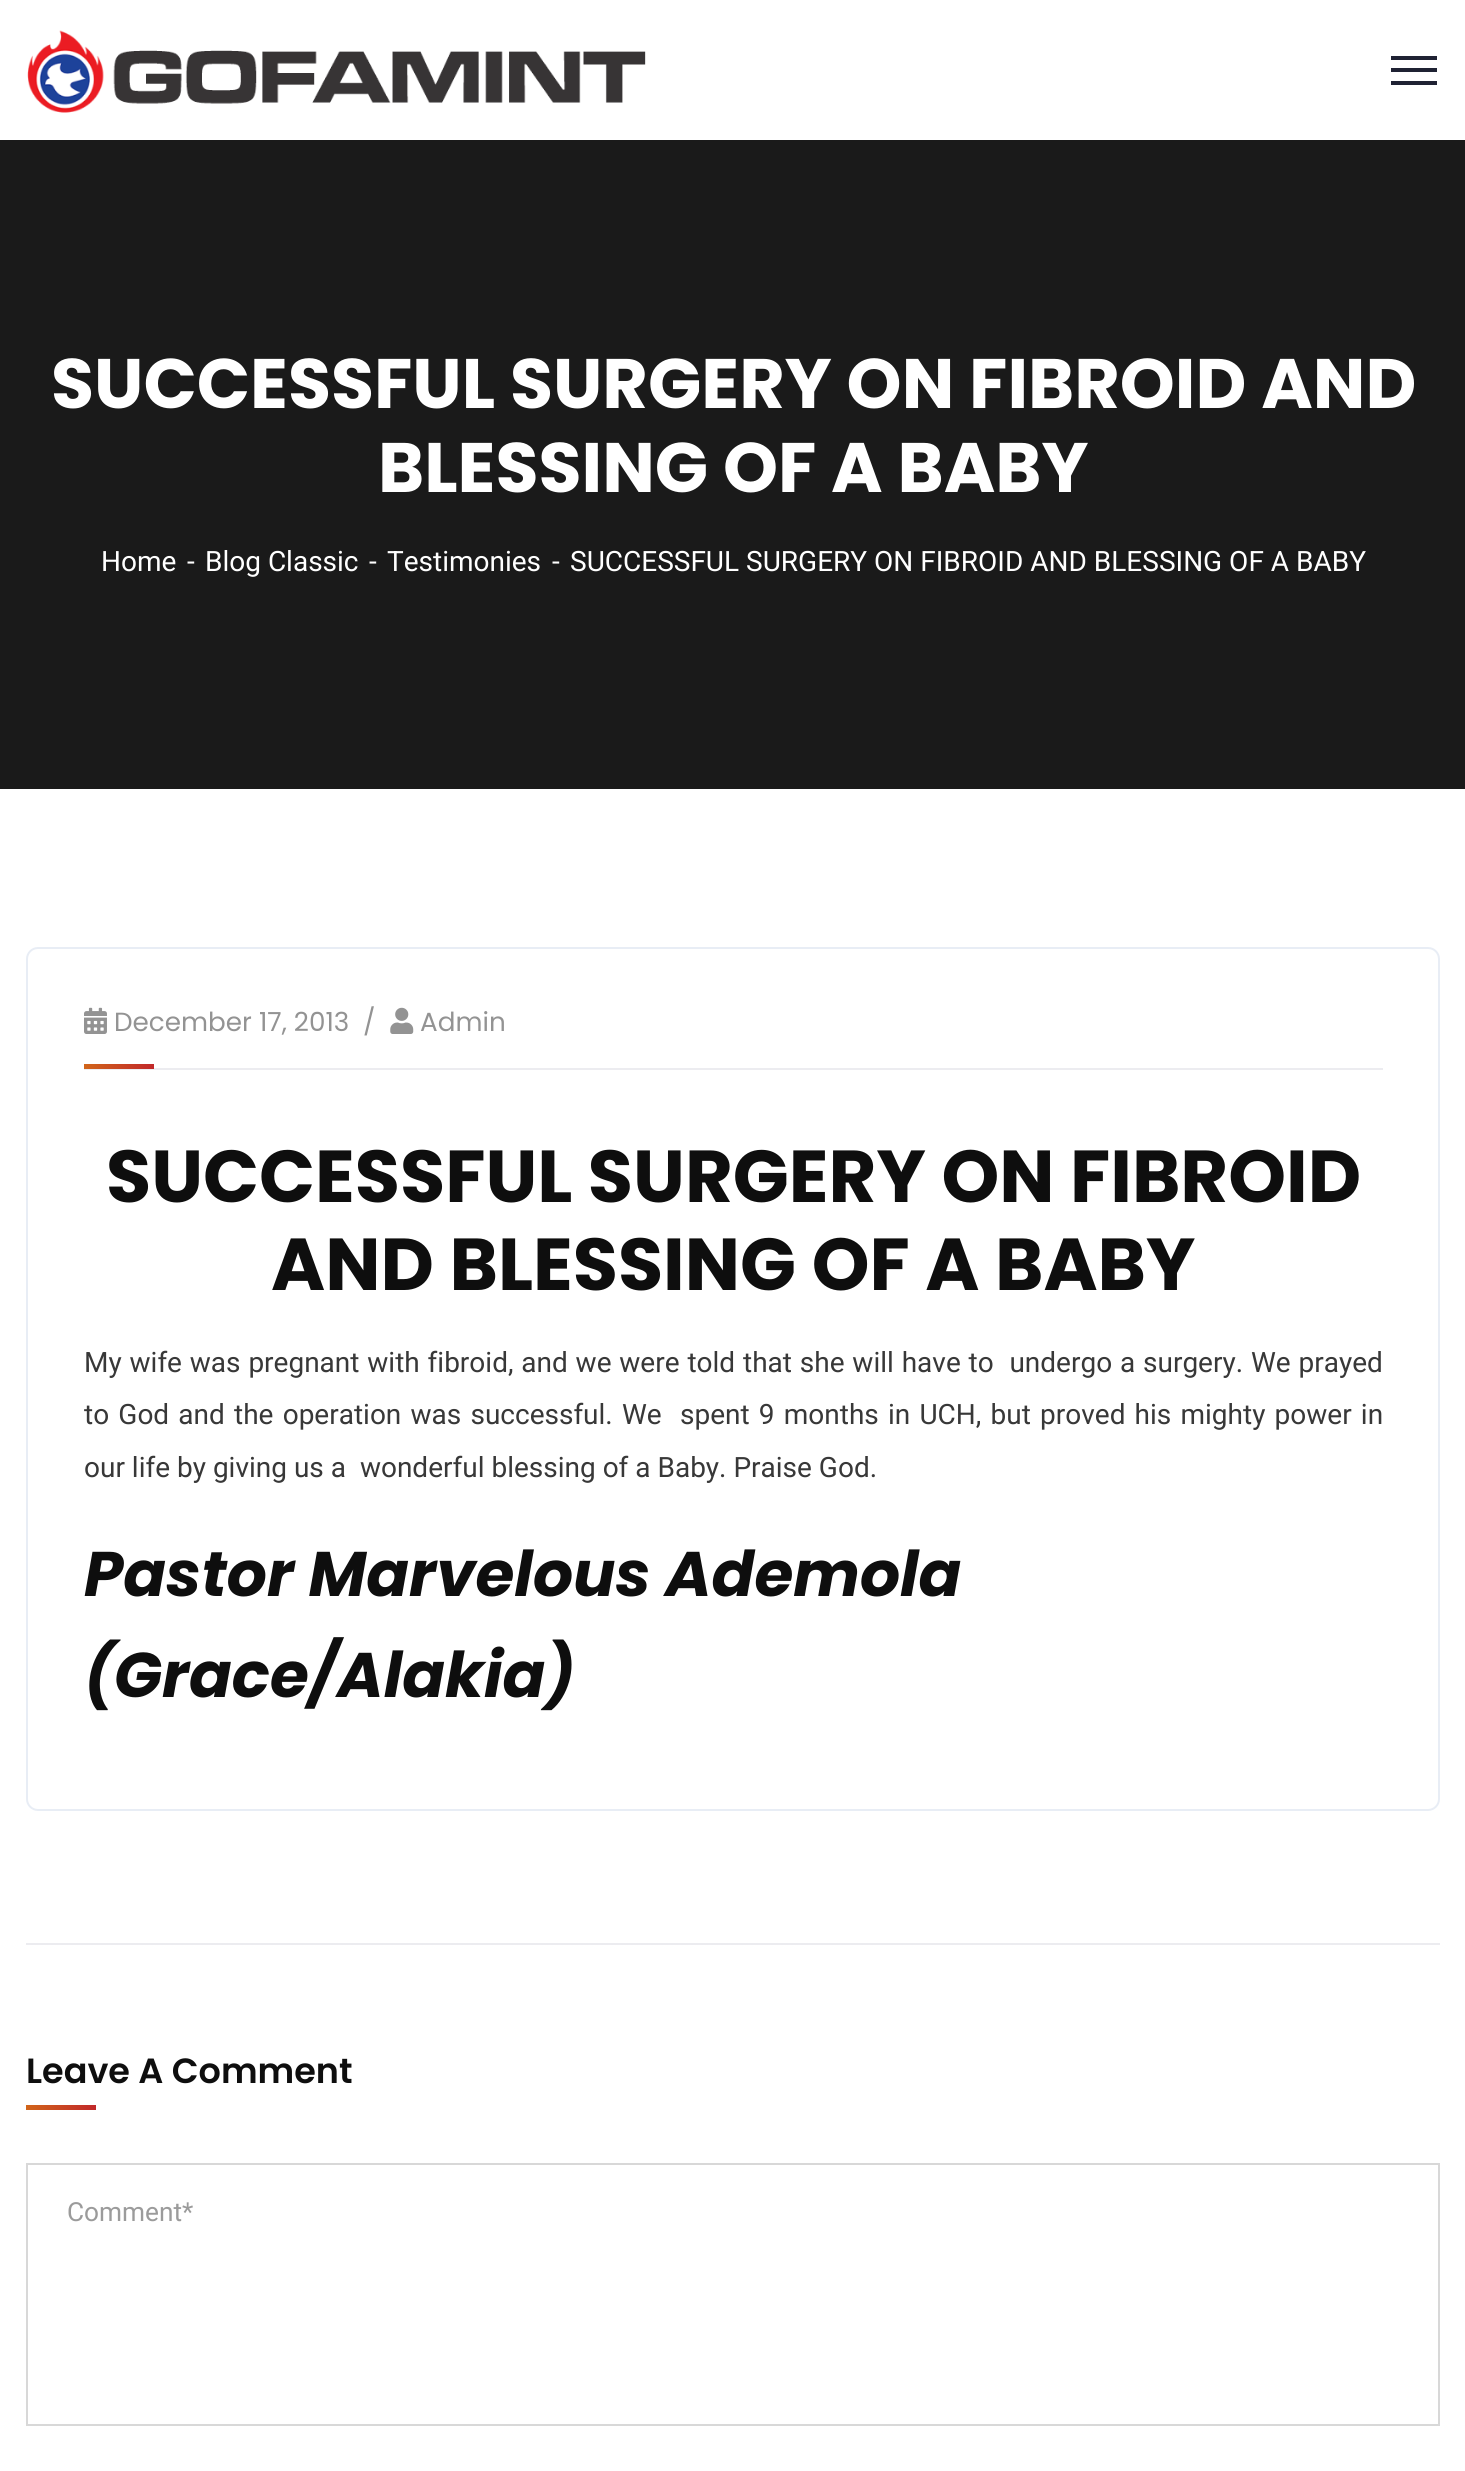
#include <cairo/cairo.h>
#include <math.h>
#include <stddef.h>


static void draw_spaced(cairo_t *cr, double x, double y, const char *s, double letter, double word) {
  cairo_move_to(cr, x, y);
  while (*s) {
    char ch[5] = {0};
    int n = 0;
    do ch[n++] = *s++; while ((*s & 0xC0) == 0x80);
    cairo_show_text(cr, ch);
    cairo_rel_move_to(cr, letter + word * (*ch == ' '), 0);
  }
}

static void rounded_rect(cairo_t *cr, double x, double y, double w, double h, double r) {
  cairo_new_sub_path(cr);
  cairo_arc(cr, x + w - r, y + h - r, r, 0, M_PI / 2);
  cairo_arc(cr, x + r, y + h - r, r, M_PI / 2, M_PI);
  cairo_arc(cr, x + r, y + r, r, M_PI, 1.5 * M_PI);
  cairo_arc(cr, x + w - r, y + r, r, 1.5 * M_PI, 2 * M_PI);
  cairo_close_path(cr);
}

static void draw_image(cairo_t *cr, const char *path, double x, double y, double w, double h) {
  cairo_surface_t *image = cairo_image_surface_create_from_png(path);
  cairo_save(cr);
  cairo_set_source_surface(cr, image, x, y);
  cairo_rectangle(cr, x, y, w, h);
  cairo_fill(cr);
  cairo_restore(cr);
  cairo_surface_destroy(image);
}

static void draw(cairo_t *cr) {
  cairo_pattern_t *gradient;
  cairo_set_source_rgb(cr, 1, 1, 1);
  cairo_paint(cr);
  draw_image(cr, "images/1.png", 27, 30, 619, 83);
  cairo_set_source_rgb(cr, 31 / 255.0, 34 / 255.0, 51 / 255.0);
  cairo_rectangle(cr, 1391, 56, 46, 4);
  cairo_fill(cr);
  cairo_rectangle(cr, 1391, 68, 46, 4);
  cairo_fill(cr);
  cairo_rectangle(cr, 1391, 81, 46, 4);
  cairo_fill(cr);
  cairo_set_source_rgb(cr, 26 / 255.0, 26 / 255.0, 26 / 255.0);
  cairo_rectangle(cr, 0, 140, 1465, 649);
  cairo_fill(cr);
  rounded_rect(cr, 27, 948, 1412, 862, 11);
  cairo_set_source_rgb(cr, 232 / 255.0, 237 / 255.0, 245 / 255.0);
  cairo_stroke(cr);
  cairo_set_source_rgb(cr, 236 / 255.0, 236 / 255.0, 240 / 255.0);
  cairo_rectangle(cr, 84, 1068, 1299, 2);
  cairo_fill(cr);
  draw_image(cr, "images/2.png", 84, 1007, 23, 27);
  draw_image(cr, "images/3.png", 390, 1007, 24, 27);
  gradient = cairo_pattern_create_linear(84, 1067, 154, 1067);
  cairo_pattern_add_color_stop_rgba(gradient, 0, 209 / 255.0, 101 / 255.0, 26 / 255.0, 1);
  cairo_pattern_add_color_stop_rgba(gradient, 1, 193 / 255.0, 40 / 255.0, 42 / 255.0, 1);
  cairo_set_source(cr, gradient);
  cairo_pattern_destroy(gradient);
  cairo_rectangle(cr, 84, 1064, 70, 5);
  cairo_fill(cr);
  cairo_set_source_rgb(cr, 236 / 255.0, 236 / 255.0, 240 / 255.0);
  cairo_rectangle(cr, 26, 1943, 1414, 2);
  cairo_fill(cr);
  gradient = cairo_pattern_create_linear(26, 2108, 96, 2108);
  cairo_pattern_add_color_stop_rgba(gradient, 0, 209 / 255.0, 101 / 255.0, 26 / 255.0, 1);
  cairo_pattern_add_color_stop_rgba(gradient, 1, 193 / 255.0, 40 / 255.0, 42 / 255.0, 1);
  cairo_set_source(cr, gradient);
  cairo_pattern_destroy(gradient);
  cairo_rectangle(cr, 26, 2105, 70, 5);
  cairo_fill(cr);
  cairo_rectangle(cr, 27, 2164, 1412, 261);
  cairo_set_source_rgb(cr, 216 / 255.0, 216 / 255.0, 216 / 255.0);
  cairo_stroke(cr);
  cairo_select_font_face(cr, "Poppins", CAIRO_FONT_SLANT_NORMAL, CAIRO_FONT_WEIGHT_BOLD);
  cairo_set_font_size(cr, 70);
  cairo_set_source_rgb(cr, 1, 1, 1);
  cairo_move_to(cr, 51, 408);
  cairo_show_text(cr, "SUCCESSFUL SURGERY ON FIBROID AND");
  cairo_move_to(cr, 378, 492);
  cairo_show_text(cr, "BLESSING OF A BABY");
  cairo_select_font_face(cr, "Roboto", CAIRO_FONT_SLANT_NORMAL, CAIRO_FONT_WEIGHT_NORMAL);
  cairo_set_font_size(cr, 28);
  cairo_move_to(cr, 101, 571);
  cairo_show_text(cr, "Home");
  cairo_move_to(cr, 187, 571);
  cairo_show_text(cr, "-");
  cairo_move_to(cr, 205, 571);
  cairo_show_text(cr, "Blog Classic");
  cairo_move_to(cr, 369, 571);
  cairo_show_text(cr, "-");
  cairo_move_to(cr, 387, 571);
  cairo_show_text(cr, "Testimonies");
  cairo_move_to(cr, 552, 571);
  cairo_show_text(cr, "-");
  cairo_move_to(cr, 570, 571);
  cairo_show_text(cr, "SUCCESSFUL SURGERY ON FIBROID AND BLESSING OF A BABY");
  cairo_select_font_face(cr, "Poppins", CAIRO_FONT_SLANT_NORMAL, CAIRO_FONT_WEIGHT_NORMAL);
  cairo_set_font_size(cr, 26.25);
  cairo_set_source_rgb(cr, 147 / 255.0, 147 / 255.0, 147 / 255.0);
  cairo_move_to(cr, 114, 1031);
  cairo_show_text(cr, "December 17, 2013");
  cairo_move_to(cr, 363, 1031);
  cairo_show_text(cr, "/");
  cairo_move_to(cr, 420, 1031);
  cairo_show_text(cr, "Admin");
  cairo_select_font_face(cr, "Poppins", CAIRO_FONT_SLANT_NORMAL, CAIRO_FONT_WEIGHT_BOLD);
  cairo_set_font_size(cr, 73.5);
  cairo_set_source_rgb(cr, 14 / 255.0, 14 / 255.0, 14 / 255.0);
  cairo_move_to(cr, 106, 1202);
  cairo_show_text(cr, "SUCCESSFUL SURGERY ON FIBROID");
  cairo_move_to(cr, 271, 1290);
  cairo_show_text(cr, "AND BLESSING OF A BABY");
  cairo_select_font_face(cr, "Roboto", CAIRO_FONT_SLANT_NORMAL, CAIRO_FONT_WEIGHT_NORMAL);
  cairo_set_font_size(cr, 28);
  cairo_set_source_rgb(cr, 56 / 255.0, 56 / 255.0, 56 / 255.0);
  draw_spaced(cr, 84, 1372, "My wife was pregnant with fibroid, and we were told that she will have to  undergo a surgery. We prayed", 0, 0.9);
  draw_spaced(cr, 84, 1424, "to God and the operation was successful. We  spent 9 months in UCH, but proved his mighty power in", 0, 2.25);
  cairo_move_to(cr, 84, 1477);
  cairo_show_text(cr, "our life by giving us a  wonderful blessing of a Baby. Praise God.");
  cairo_select_font_face(cr, "Poppins", CAIRO_FONT_SLANT_ITALIC, CAIRO_FONT_WEIGHT_BOLD);
  cairo_set_font_size(cr, 63);
  cairo_set_source_rgb(cr, 14 / 255.0, 14 / 255.0, 14 / 255.0);
  cairo_move_to(cr, 84, 1596);
  cairo_show_text(cr, "Pastor Marvelous Ademola");
  cairo_move_to(cr, 84, 1697);
  cairo_show_text(cr, "(Grace/Alakia)");
  cairo_select_font_face(cr, "Poppins SemiBold", CAIRO_FONT_SLANT_NORMAL, CAIRO_FONT_WEIGHT_NORMAL);
  cairo_set_font_size(cr, 35);
  cairo_move_to(cr, 26, 2083);
  cairo_show_text(cr, "Leave A Comment");
  cairo_select_font_face(cr, "Roboto", CAIRO_FONT_SLANT_NORMAL, CAIRO_FONT_WEIGHT_NORMAL);
  cairo_set_font_size(cr, 26.25);
  cairo_set_source_rgb(cr, 155 / 255.0, 155 / 255.0, 155 / 255.0);
  cairo_move_to(cr, 67, 2221);
  cairo_show_text(cr, "Comment*");
}

int main(void) {
  cairo_surface_t *surface = cairo_image_surface_create(CAIRO_FORMAT_RGB24, 1465, 2471);
  cairo_t *cr = cairo_create(surface);
  cairo_font_options_t *options = cairo_font_options_create();
  cairo_font_options_set_hint_metrics(options, CAIRO_HINT_METRICS_OFF);
  cairo_font_options_set_hint_style(options, CAIRO_HINT_STYLE_NONE);
  cairo_set_font_options(cr, options);
  cairo_set_miter_limit(cr, 4);
  draw(cr);
  cairo_surface_write_to_png(surface, "out.png");
  cairo_font_options_destroy(options);
  cairo_destroy(cr);
  cairo_surface_destroy(surface);
  return 0;
}
